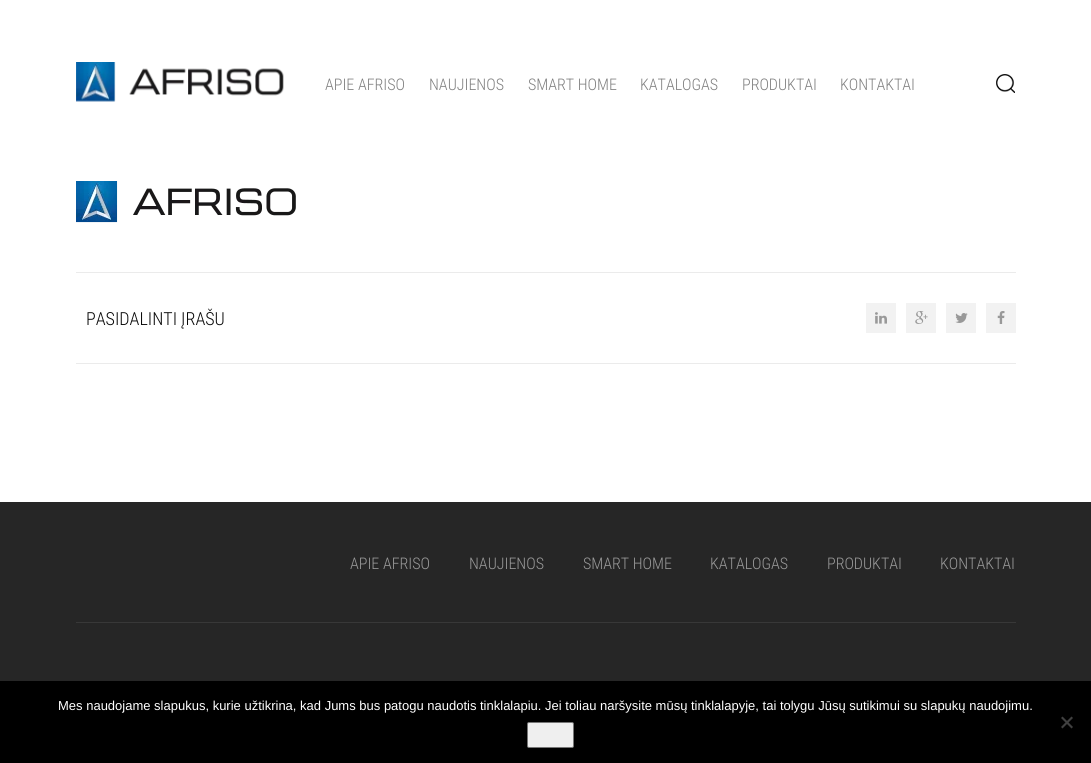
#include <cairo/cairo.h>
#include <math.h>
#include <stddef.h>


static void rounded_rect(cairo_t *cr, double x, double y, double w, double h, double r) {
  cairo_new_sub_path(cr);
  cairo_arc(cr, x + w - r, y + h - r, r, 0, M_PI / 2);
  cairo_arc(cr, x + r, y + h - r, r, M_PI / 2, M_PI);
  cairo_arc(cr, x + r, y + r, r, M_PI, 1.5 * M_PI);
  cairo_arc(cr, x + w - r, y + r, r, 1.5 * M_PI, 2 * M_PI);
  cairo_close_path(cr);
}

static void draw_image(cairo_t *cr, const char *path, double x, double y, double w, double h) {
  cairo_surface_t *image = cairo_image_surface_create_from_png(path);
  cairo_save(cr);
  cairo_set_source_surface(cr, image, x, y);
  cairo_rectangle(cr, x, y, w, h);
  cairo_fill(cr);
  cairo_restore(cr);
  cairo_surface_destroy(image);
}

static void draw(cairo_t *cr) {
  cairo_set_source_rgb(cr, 1, 1, 1);
  cairo_paint(cr);
  draw_image(cr, "images/1.png", 76, 62, 208, 40);
  draw_image(cr, "images/2.png", 996, 74, 19, 19);
  draw_image(cr, "images/3.png", 76, 181, 220, 42);
  cairo_set_source_rgb(cr, 235 / 255.0, 235 / 255.0, 235 / 255.0);
  cairo_rectangle(cr, 76, 272, 940, 1);
  cairo_fill(cr);
  cairo_rectangle(cr, 76, 363, 940, 1);
  cairo_fill(cr);
  cairo_set_source_rgb(cr, 242 / 255.0, 242 / 255.0, 242 / 255.0);
  cairo_rectangle(cr, 866, 303, 30, 30);
  cairo_fill(cr);
  draw_image(cr, "images/4.png", 875, 312, 12, 12);
  cairo_rectangle(cr, 906, 303, 30, 30);
  cairo_fill(cr);
  draw_image(cr, "images/5.png", 915, 311, 13, 13);
  cairo_rectangle(cr, 946, 303, 30, 30);
  cairo_fill(cr);
  draw_image(cr, "images/6.png", 955, 313, 13, 10);
  cairo_rectangle(cr, 986, 303, 30, 30);
  cairo_fill(cr);
  draw_image(cr, "images/7.png", 997, 311, 8, 13);
  cairo_set_source_rgb(cr, 38 / 255.0, 38 / 255.0, 38 / 255.0);
  cairo_rectangle(cr, 0, 502, 1091, 179);
  cairo_fill(cr);
  cairo_set_source_rgb(cr, 56 / 255.0, 56 / 255.0, 56 / 255.0);
  cairo_rectangle(cr, 76, 622, 940, 1);
  cairo_fill(cr);
  cairo_set_source_rgb(cr, 0, 0, 0);
  cairo_rectangle(cr, 0, 681, 1091, 82);
  cairo_fill(cr);
  cairo_set_source_rgb(cr, 239 / 255.0, 239 / 255.0, 239 / 255.0);
  rounded_rect(cr, 527.5, 722.5, 46, 25, 1.5);
  cairo_fill_preserve(cr);
  cairo_set_source_rgb(cr, 118 / 255.0, 118 / 255.0, 118 / 255.0);
  cairo_set_line_width(cr, 1);
  cairo_stroke(cr);
  cairo_set_source_rgb(cr, 64 / 255.0, 64 / 255.0, 64 / 255.0);
  cairo_new_path(cr);
  cairo_move_to(cr, 1071.5, 716.5);
  cairo_line_to(cr, 1073, 718);
  cairo_line_to(cr, 1062.5, 728.5);
  cairo_line_to(cr, 1061, 727);
  cairo_close_path(cr);
  cairo_fill(cr);
  cairo_new_path(cr);
  cairo_move_to(cr, 1061, 718);
  cairo_line_to(cr, 1062.5, 716.5);
  cairo_line_to(cr, 1073, 727);
  cairo_line_to(cr, 1071.5, 728.5);
  cairo_close_path(cr);
  cairo_fill(cr);
  cairo_select_font_face(cr, "Roboto Condensed Light", CAIRO_FONT_SLANT_NORMAL, CAIRO_FONT_WEIGHT_NORMAL);
  cairo_set_font_size(cr, 16);
  cairo_set_source_rgb(cr, 128 / 255.0, 128 / 255.0, 128 / 255.0);
  cairo_move_to(cr, 325, 90);
  cairo_show_text(cr, "APIE AFRISO");
  cairo_move_to(cr, 429, 90);
  cairo_show_text(cr, "NAUJIENOS");
  cairo_move_to(cr, 528, 90);
  cairo_show_text(cr, "SMART HOME");
  cairo_move_to(cr, 640, 90);
  cairo_show_text(cr, "KATALOGAS");
  cairo_move_to(cr, 742, 90);
  cairo_show_text(cr, "PRODUKTAI");
  cairo_move_to(cr, 840, 90);
  cairo_show_text(cr, "KONTAKTAI");
  cairo_set_font_size(cr, 18);
  cairo_set_source_rgb(cr, 9 / 255.0, 9 / 255.0, 9 / 255.0);
  cairo_move_to(cr, 86, 325);
  cairo_show_text(cr, "PASIDALINTI ĮRAŠU");
  cairo_set_font_size(cr, 16);
  cairo_set_source_rgb(cr, 153 / 255.0, 153 / 255.0, 153 / 255.0);
  cairo_move_to(cr, 350, 569);
  cairo_show_text(cr, "APIE AFRISO");
  cairo_move_to(cr, 469, 569);
  cairo_show_text(cr, "NAUJIENOS");
  cairo_move_to(cr, 583, 569);
  cairo_show_text(cr, "SMART HOME");
  cairo_move_to(cr, 710, 569);
  cairo_show_text(cr, "KATALOGAS");
  cairo_move_to(cr, 827, 569);
  cairo_show_text(cr, "PRODUKTAI");
  cairo_move_to(cr, 940, 569);
  cairo_show_text(cr, "KONTAKTAI");
  cairo_select_font_face(cr, "Liberation Sans", CAIRO_FONT_SLANT_NORMAL, CAIRO_FONT_WEIGHT_NORMAL);
  cairo_set_font_size(cr, 13);
  cairo_set_source_rgb(cr, 1, 1, 1);
  cairo_move_to(cr, 58, 710);
  cairo_show_text(cr, "Mes naudojame slapukus, kurie užtikrina, kad Jums bus patogu naudotis tinklalapiu. Jei toliau naršysite mūsų tinklalapyje, tai tolygu Jūsų sutikimui su slapukų naudojimu.");
}

int main(void) {
  cairo_surface_t *surface = cairo_image_surface_create(CAIRO_FORMAT_RGB24, 1091, 763);
  cairo_t *cr = cairo_create(surface);
  cairo_font_options_t *options = cairo_font_options_create();
  cairo_font_options_set_hint_metrics(options, CAIRO_HINT_METRICS_OFF);
  cairo_font_options_set_hint_style(options, CAIRO_HINT_STYLE_NONE);
  cairo_set_font_options(cr, options);
  cairo_set_miter_limit(cr, 4);
  draw(cr);
  cairo_surface_write_to_png(surface, "out.png");
  cairo_font_options_destroy(options);
  cairo_destroy(cr);
  cairo_surface_destroy(surface);
  return 0;
}
